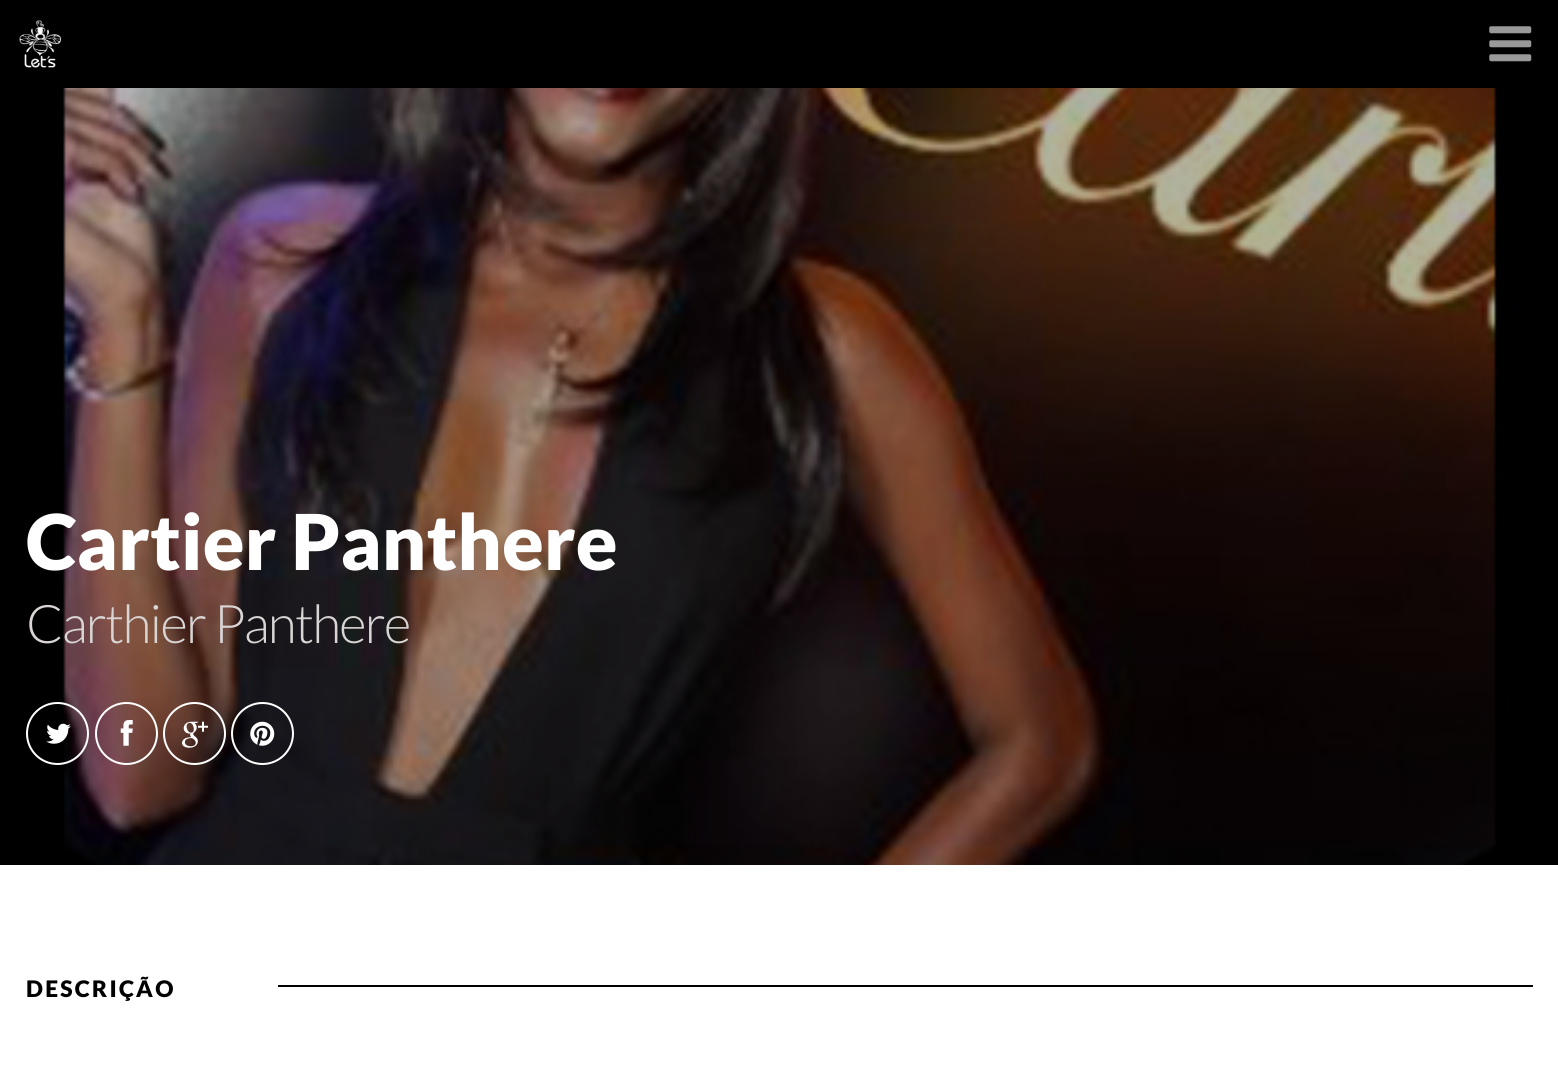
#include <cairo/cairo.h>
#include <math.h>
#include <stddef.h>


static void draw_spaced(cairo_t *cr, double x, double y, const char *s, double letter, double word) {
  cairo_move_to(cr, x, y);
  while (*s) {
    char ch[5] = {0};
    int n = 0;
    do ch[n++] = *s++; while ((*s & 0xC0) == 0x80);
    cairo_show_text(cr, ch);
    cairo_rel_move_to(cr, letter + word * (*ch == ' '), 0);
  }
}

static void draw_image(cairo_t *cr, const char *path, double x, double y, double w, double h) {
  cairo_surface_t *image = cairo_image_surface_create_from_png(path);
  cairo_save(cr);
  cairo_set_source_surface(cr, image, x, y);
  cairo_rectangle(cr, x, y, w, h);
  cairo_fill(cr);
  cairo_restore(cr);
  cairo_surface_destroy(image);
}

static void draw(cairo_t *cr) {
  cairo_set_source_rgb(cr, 1, 1, 1);
  cairo_paint(cr);
  cairo_set_source_rgb(cr, 0, 0, 0);
  cairo_rectangle(cr, 0, 0, 1558, 88);
  cairo_fill(cr);
  draw_image(cr, "images/1.png", 19, 20, 42, 48);
  draw_image(cr, "images/2.png", 1489, 26, 43, 36);
  draw_image(cr, "images/3.png", 0, 88, 1558, 777);
  cairo_arc(cr, 57.5, 733.5, 30.5, 0, 2 * M_PI);
  cairo_set_source_rgb(cr, 1, 1, 1);
  cairo_stroke(cr);
  draw_image(cr, "images/4.png", 46, 723, 25, 21);
  cairo_arc(cr, 126.5, 733.5, 30.5, 0, 2 * M_PI);
  cairo_stroke(cr);
  draw_image(cr, "images/5.png", 120, 720, 13, 26);
  cairo_arc(cr, 194.5, 733.5, 30.5, 0, 2 * M_PI);
  cairo_stroke(cr);
  draw_image(cr, "images/6.png", 182, 721, 26, 27);
  cairo_arc(cr, 262.5, 733.5, 30.5, 0, 2 * M_PI);
  cairo_stroke(cr);
  draw_image(cr, "images/7.png", 250, 721, 25, 25);
  cairo_set_source_rgb(cr, 0, 0, 0);
  cairo_rectangle(cr, 278, 985, 1255, 2);
  cairo_fill(cr);
  cairo_select_font_face(cr, "Lato Black", CAIRO_FONT_SLANT_NORMAL, CAIRO_FONT_WEIGHT_NORMAL);
  cairo_set_font_size(cr, 77);
  cairo_set_source_rgb(cr, 1, 1, 1);
  cairo_move_to(cr, 26, 570);
  cairo_show_text(cr, "Cartier Panthere");
  cairo_select_font_face(cr, "Lato Light", CAIRO_FONT_SLANT_NORMAL, CAIRO_FONT_WEIGHT_NORMAL);
  cairo_set_font_size(cr, 53.25);
  cairo_set_source_rgb(cr, 216 / 255.0, 213 / 255.0, 212 / 255.0);
  draw_spaced(cr, 26, 643, "Carthier Panthere", -1.75, 0);
  cairo_select_font_face(cr, "Lato Black", CAIRO_FONT_SLANT_NORMAL, CAIRO_FONT_WEIGHT_NORMAL);
  cairo_set_font_size(cr, 22.75);
  cairo_set_source_rgb(cr, 0, 0, 0);
  draw_spaced(cr, 26, 997, "DESCRIÇÃO", 2.25, 0);
}

int main(void) {
  cairo_surface_t *surface = cairo_image_surface_create(CAIRO_FORMAT_RGB24, 1558, 1079);
  cairo_t *cr = cairo_create(surface);
  cairo_font_options_t *options = cairo_font_options_create();
  cairo_font_options_set_hint_metrics(options, CAIRO_HINT_METRICS_OFF);
  cairo_font_options_set_hint_style(options, CAIRO_HINT_STYLE_NONE);
  cairo_set_font_options(cr, options);
  cairo_set_miter_limit(cr, 4);
  draw(cr);
  cairo_surface_write_to_png(surface, "out.png");
  cairo_font_options_destroy(options);
  cairo_destroy(cr);
  cairo_surface_destroy(surface);
  return 0;
}
